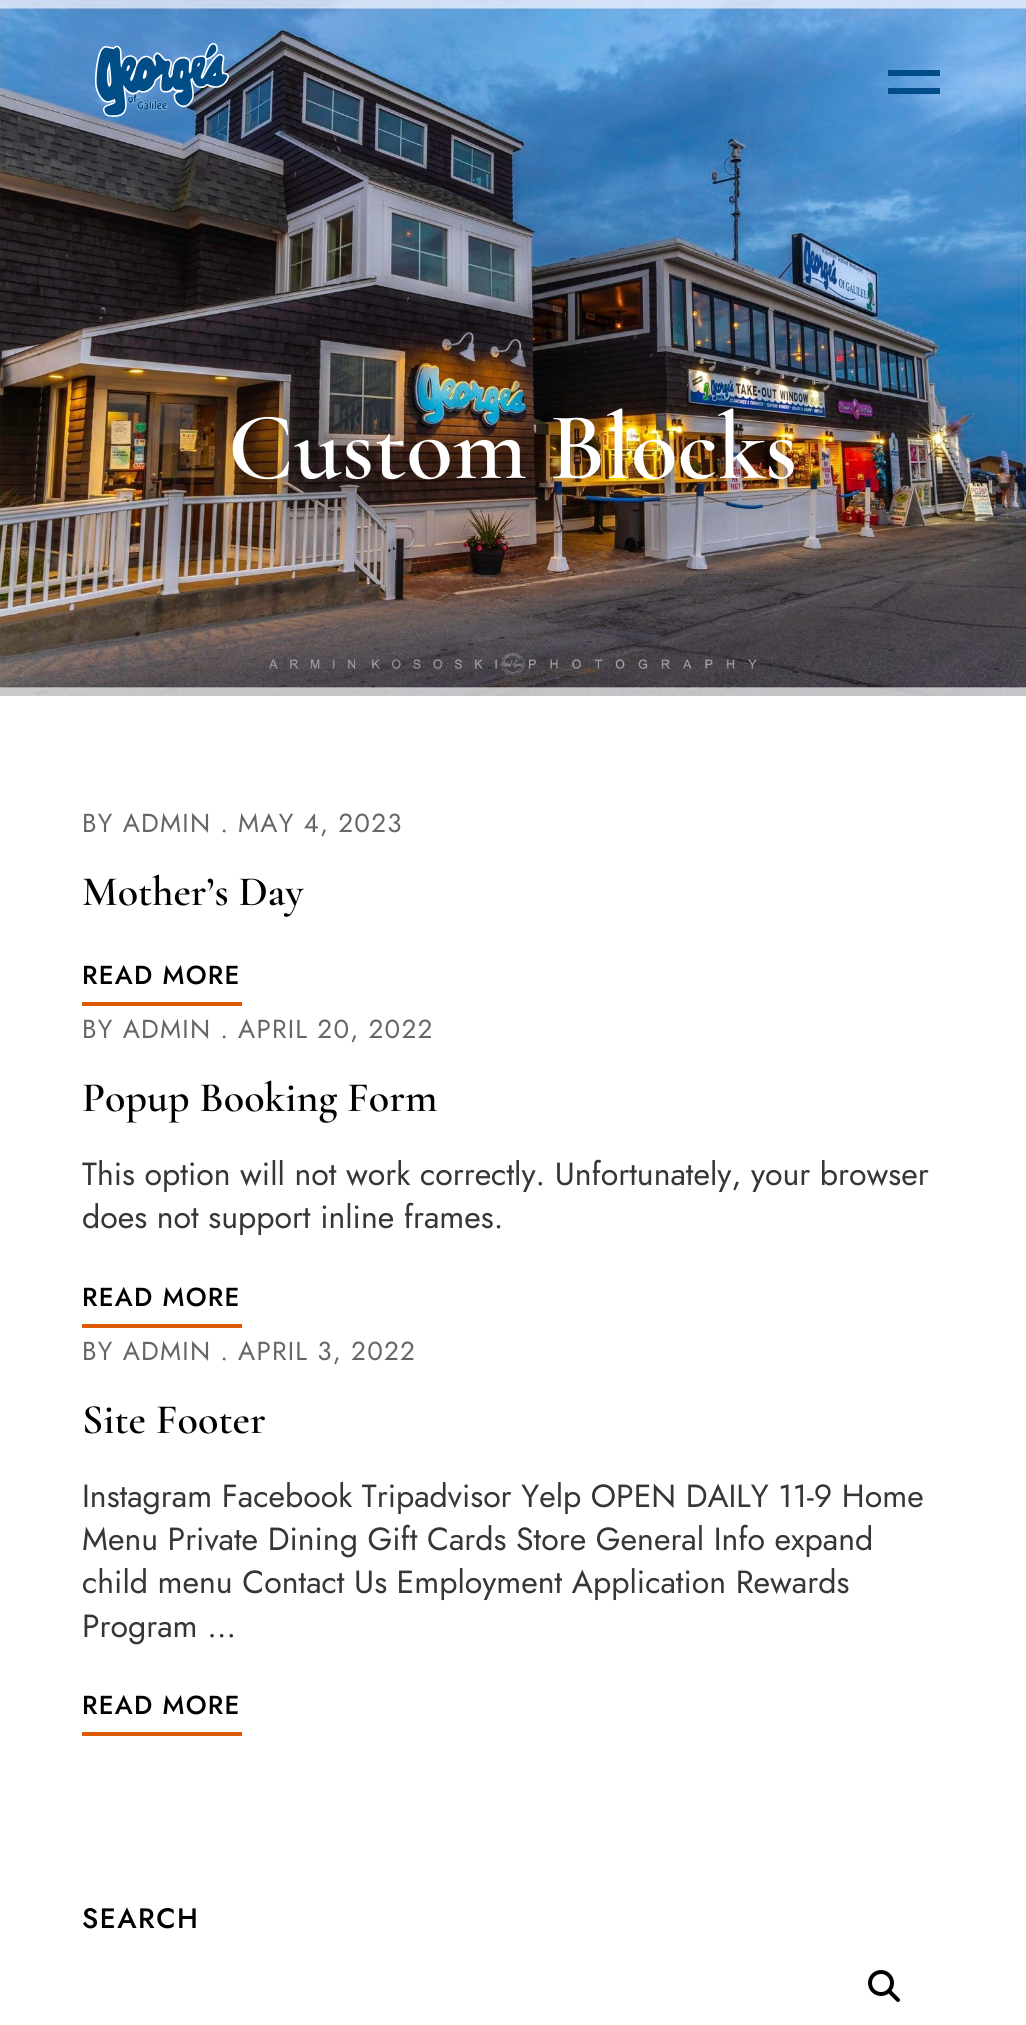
#include <cairo/cairo.h>
#include <math.h>
#include <stddef.h>


static void draw_spaced(cairo_t *cr, double x, double y, const char *s, double letter, double word) {
  cairo_move_to(cr, x, y);
  while (*s) {
    char ch[5] = {0};
    int n = 0;
    do ch[n++] = *s++; while ((*s & 0xC0) == 0x80);
    cairo_show_text(cr, ch);
    cairo_rel_move_to(cr, letter + word * (*ch == ' '), 0);
  }
}

static void draw_image(cairo_t *cr, const char *path, double x, double y, double w, double h) {
  cairo_surface_t *image = cairo_image_surface_create_from_png(path);
  cairo_save(cr);
  cairo_set_source_surface(cr, image, x, y);
  cairo_rectangle(cr, x, y, w, h);
  cairo_fill(cr);
  cairo_restore(cr);
  cairo_surface_destroy(image);
}

static void draw(cairo_t *cr) {
  cairo_set_source_rgb(cr, 1, 1, 1);
  cairo_paint(cr);
  draw_image(cr, "images/2.png", 0, 0, 1026, 696);
  draw_image(cr, "images/1.png", 95, 43, 134, 74);
  cairo_set_source_rgb(cr, 0, 77 / 255.0, 136 / 255.0);
  cairo_rectangle(cr, 888, 70, 52, 6);
  cairo_fill(cr);
  cairo_rectangle(cr, 888, 88, 52, 6);
  cairo_fill(cr);
  cairo_set_source_rgb(cr, 221 / 255.0, 89 / 255.0, 3 / 255.0);
  cairo_rectangle(cr, 82, 1002, 160, 4);
  cairo_fill(cr);
  cairo_rectangle(cr, 82, 1324, 160, 4);
  cairo_fill(cr);
  cairo_rectangle(cr, 82, 1732, 160, 4);
  cairo_fill(cr);
  draw_image(cr, "images/3.png", 868, 1970, 32, 32);
  cairo_select_font_face(cr, "Cormorant Garamond SemiBold", CAIRO_FONT_SLANT_NORMAL, CAIRO_FONT_WEIGHT_NORMAL);
  cairo_set_font_size(cr, 96);
  cairo_set_source_rgb(cr, 1, 1, 1);
  cairo_move_to(cr, 228, 478);
  cairo_show_text(cr, "Custom Blocks");
  cairo_select_font_face(cr, "Jost", CAIRO_FONT_SLANT_NORMAL, CAIRO_FONT_WEIGHT_NORMAL);
  cairo_set_font_size(cr, 26);
  cairo_set_source_rgb(cr, 102 / 255.0, 102 / 255.0, 102 / 255.0);
  draw_spaced(cr, 82, 832, "BY ADMIN .", 1.25, 0);
  draw_spaced(cr, 238, 832, "MAY 4, 2023", 1.25, 0);
  cairo_select_font_face(cr, "Cormorant Garamond SemiBold", CAIRO_FONT_SLANT_NORMAL, CAIRO_FONT_WEIGHT_NORMAL);
  cairo_set_font_size(cr, 42);
  cairo_set_source_rgb(cr, 0, 0, 0);
  cairo_move_to(cr, 82, 905);
  cairo_show_text(cr, "Mother’s Day");
  cairo_select_font_face(cr, "Jost Medium", CAIRO_FONT_SLANT_NORMAL, CAIRO_FONT_WEIGHT_NORMAL);
  cairo_set_font_size(cr, 26);
  draw_spaced(cr, 82, 984, "READ MORE", 1.25, 0);
  cairo_select_font_face(cr, "Jost", CAIRO_FONT_SLANT_NORMAL, CAIRO_FONT_WEIGHT_NORMAL);
  cairo_set_source_rgb(cr, 102 / 255.0, 102 / 255.0, 102 / 255.0);
  draw_spaced(cr, 82, 1038, "BY ADMIN .", 1.25, 0);
  draw_spaced(cr, 238, 1038, "APRIL 20, 2022", 1.25, 0);
  cairo_select_font_face(cr, "Cormorant Garamond SemiBold", CAIRO_FONT_SLANT_NORMAL, CAIRO_FONT_WEIGHT_NORMAL);
  cairo_set_font_size(cr, 42);
  cairo_set_source_rgb(cr, 0, 0, 0);
  cairo_move_to(cr, 82, 1111);
  cairo_show_text(cr, "Popup Booking Form");
  cairo_select_font_face(cr, "Jost", CAIRO_FONT_SLANT_NORMAL, CAIRO_FONT_WEIGHT_NORMAL);
  cairo_set_font_size(cr, 32);
  cairo_set_source_rgb(cr, 54 / 255.0, 54 / 255.0, 54 / 255.0);
  cairo_move_to(cr, 82, 1185);
  cairo_show_text(cr, "This option will not work correctly. Unfortunately, your browser");
  cairo_move_to(cr, 82, 1228);
  cairo_show_text(cr, "does not support inline frames.");
  cairo_select_font_face(cr, "Jost Medium", CAIRO_FONT_SLANT_NORMAL, CAIRO_FONT_WEIGHT_NORMAL);
  cairo_set_font_size(cr, 26);
  cairo_set_source_rgb(cr, 0, 0, 0);
  draw_spaced(cr, 82, 1306, "READ MORE", 1.25, 0);
  cairo_select_font_face(cr, "Jost", CAIRO_FONT_SLANT_NORMAL, CAIRO_FONT_WEIGHT_NORMAL);
  cairo_set_source_rgb(cr, 102 / 255.0, 102 / 255.0, 102 / 255.0);
  draw_spaced(cr, 82, 1360, "BY ADMIN .", 1.25, 0);
  draw_spaced(cr, 238, 1360, "APRIL 3, 2022", 1.25, 0);
  cairo_select_font_face(cr, "Cormorant Garamond SemiBold", CAIRO_FONT_SLANT_NORMAL, CAIRO_FONT_WEIGHT_NORMAL);
  cairo_set_font_size(cr, 42);
  cairo_set_source_rgb(cr, 0, 0, 0);
  cairo_move_to(cr, 82, 1433);
  cairo_show_text(cr, "Site Footer");
  cairo_select_font_face(cr, "Jost", CAIRO_FONT_SLANT_NORMAL, CAIRO_FONT_WEIGHT_NORMAL);
  cairo_set_font_size(cr, 32);
  cairo_set_source_rgb(cr, 54 / 255.0, 54 / 255.0, 54 / 255.0);
  cairo_move_to(cr, 82, 1507);
  cairo_show_text(cr, "Instagram Facebook Tripadvisor Yelp OPEN DAILY 11-9 Home");
  cairo_move_to(cr, 82, 1550);
  cairo_show_text(cr, "Menu Private Dining Gift Cards Store General Info expand");
  cairo_move_to(cr, 82, 1593);
  cairo_show_text(cr, "child menu Contact Us Employment Application Rewards");
  cairo_move_to(cr, 82, 1637);
  cairo_show_text(cr, "Program …");
  cairo_select_font_face(cr, "Jost Medium", CAIRO_FONT_SLANT_NORMAL, CAIRO_FONT_WEIGHT_NORMAL);
  cairo_set_font_size(cr, 26);
  cairo_set_source_rgb(cr, 0, 0, 0);
  draw_spaced(cr, 82, 1714, "READ MORE", 1.25, 0);
  cairo_set_font_size(cr, 28);
  draw_spaced(cr, 82, 1928, "SEARCH", 1.5, 0);
}

int main(void) {
  cairo_surface_t *surface = cairo_image_surface_create(CAIRO_FORMAT_RGB24, 1026, 2025);
  cairo_t *cr = cairo_create(surface);
  cairo_font_options_t *options = cairo_font_options_create();
  cairo_font_options_set_hint_metrics(options, CAIRO_HINT_METRICS_OFF);
  cairo_font_options_set_hint_style(options, CAIRO_HINT_STYLE_NONE);
  cairo_set_font_options(cr, options);
  cairo_set_miter_limit(cr, 4);
  draw(cr);
  cairo_surface_write_to_png(surface, "out.png");
  cairo_font_options_destroy(options);
  cairo_destroy(cr);
  cairo_surface_destroy(surface);
  return 0;
}
